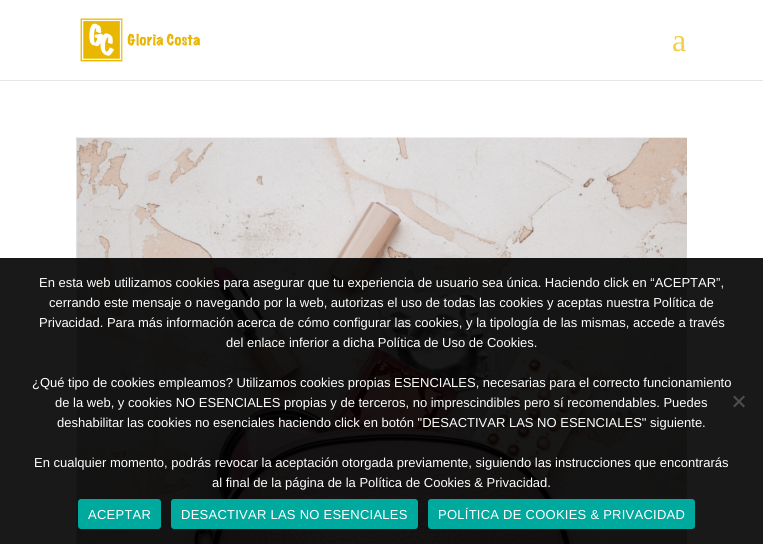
#include <cairo/cairo.h>
#include <math.h>
#include <stddef.h>


static void draw_spaced(cairo_t *cr, double x, double y, const char *s, double letter, double word) {
  cairo_move_to(cr, x, y);
  while (*s) {
    char ch[5] = {0};
    int n = 0;
    do ch[n++] = *s++; while ((*s & 0xC0) == 0x80);
    cairo_show_text(cr, ch);
    cairo_rel_move_to(cr, letter + word * (*ch == ' '), 0);
  }
}

static void rounded_rect(cairo_t *cr, double x, double y, double w, double h, double r) {
  cairo_new_sub_path(cr);
  cairo_arc(cr, x + w - r, y + h - r, r, 0, M_PI / 2);
  cairo_arc(cr, x + r, y + h - r, r, M_PI / 2, M_PI);
  cairo_arc(cr, x + r, y + r, r, M_PI, 1.5 * M_PI);
  cairo_arc(cr, x + w - r, y + r, r, 1.5 * M_PI, 2 * M_PI);
  cairo_close_path(cr);
}

static void draw_image(cairo_t *cr, const char *path, double x, double y, double w, double h) {
  cairo_surface_t *image = cairo_image_surface_create_from_png(path);
  cairo_save(cr);
  cairo_set_source_surface(cr, image, x, y);
  cairo_rectangle(cr, x, y, w, h);
  cairo_fill(cr);
  cairo_restore(cr);
  cairo_surface_destroy(image);
}

static void draw(cairo_t *cr) {
  cairo_set_source_rgb(cr, 1, 1, 1);
  cairo_paint(cr);
  cairo_set_source_rgb(cr, 230 / 255.0, 230 / 255.0, 230 / 255.0);
  cairo_rectangle(cr, 0, 80, 763, 1);
  cairo_fill(cr);
  draw_image(cr, "images/1.png", 80, 18, 120, 44);
  draw_image(cr, "images/2.png", 76, 137, 611, 407);
  cairo_set_source_rgba(cr, 0, 0, 0, 0.9);
  cairo_rectangle(cr, 0, 258, 763, 286);
  cairo_fill(cr);
  cairo_set_source_rgb(cr, 77 / 255.0, 77 / 255.0, 77 / 255.0);
  cairo_new_path(cr);
  cairo_move_to(cr, 743.5, 395.5);
  cairo_line_to(cr, 745, 397);
  cairo_line_to(cr, 734.5, 407.5);
  cairo_line_to(cr, 733, 406);
  cairo_close_path(cr);
  cairo_fill(cr);
  cairo_new_path(cr);
  cairo_move_to(cr, 733, 397);
  cairo_line_to(cr, 734.5, 395.5);
  cairo_line_to(cr, 745, 406);
  cairo_line_to(cr, 743.5, 407.5);
  cairo_close_path(cr);
  cairo_fill(cr);
  cairo_set_source_rgb(cr, 0, 169 / 255.0, 157 / 255.0);
  rounded_rect(cr, 78, 499, 83, 30, 3);
  cairo_fill(cr);
  rounded_rect(cr, 171, 499, 247, 30, 3);
  cairo_fill(cr);
  rounded_rect(cr, 428, 499, 267, 30, 3);
  cairo_fill(cr);
  cairo_select_font_face(cr, "Liberation Serif", CAIRO_FONT_SLANT_NORMAL, CAIRO_FONT_WEIGHT_NORMAL);
  cairo_set_font_size(cr, 32);
  cairo_set_source_rgb(cr, 244 / 255.0, 208 / 255.0, 63 / 255.0);
  cairo_move_to(cr, 672, 51);
  cairo_show_text(cr, "a");
  cairo_select_font_face(cr, "Liberation Sans", CAIRO_FONT_SLANT_NORMAL, CAIRO_FONT_WEIGHT_NORMAL);
  cairo_set_font_size(cr, 13);
  cairo_set_source_rgb(cr, 1, 1, 1);
  cairo_move_to(cr, 39, 287);
  cairo_show_text(cr, "En esta web utilizamos cookies para asegurar que tu experiencia de usuario sea única. Haciendo click en “ACEPTAR”,");
  cairo_move_to(cr, 49, 307);
  cairo_show_text(cr, "cerrando este mensaje o navegando por la web, autorizas el uso de todas las cookies y aceptas nuestra Política de");
  cairo_move_to(cr, 39, 327);
  cairo_show_text(cr, "Privacidad. Para más información acerca de cómo configurar las cookies, y la tipología de las mismas, accede a través");
  cairo_move_to(cr, 226, 347);
  cairo_show_text(cr, "del enlace inferior a dicha Política de Uso de Cookies.");
  cairo_move_to(cr, 32, 387);
  cairo_show_text(cr, "¿Qué tipo de cookies empleamos? Utilizamos cookies propias ESENCIALES, necesarias para el correcto funcionamiento");
  cairo_move_to(cr, 55, 407);
  cairo_show_text(cr, "de la web, y cookies NO ESENCIALES propias y de terceros, no imprescindibles pero sí recomendables. Puedes");
  cairo_move_to(cr, 57, 427);
  cairo_show_text(cr, "deshabilitar las cookies no esenciales haciendo click en botón \"DESACTIVAR LAS NO ESENCIALES\" siguiente.");
  cairo_move_to(cr, 34, 467);
  cairo_show_text(cr, "En cualquier momento, podrás revocar la aceptación otorgada previamente, siguiendo las instrucciones que encontrarás");
  cairo_move_to(cr, 212, 487);
  cairo_show_text(cr, "al final de la página de la Política de Cookies & Privacidad.");
  draw_spaced(cr, 88, 519, "ACEPTAR", 0.25, 0);
  draw_spaced(cr, 181, 519, "DESACTIVAR LAS NO ESENCIALES", 0.25, 0);
  draw_spaced(cr, 438, 519, "POLÍTICA DE COOKIES & PRIVACIDAD", 0.25, 0);
}

int main(void) {
  cairo_surface_t *surface = cairo_image_surface_create(CAIRO_FORMAT_RGB24, 763, 544);
  cairo_t *cr = cairo_create(surface);
  cairo_font_options_t *options = cairo_font_options_create();
  cairo_font_options_set_hint_metrics(options, CAIRO_HINT_METRICS_OFF);
  cairo_font_options_set_hint_style(options, CAIRO_HINT_STYLE_NONE);
  cairo_set_font_options(cr, options);
  cairo_set_miter_limit(cr, 4);
  draw(cr);
  cairo_surface_write_to_png(surface, "out.png");
  cairo_font_options_destroy(options);
  cairo_destroy(cr);
  cairo_surface_destroy(surface);
  return 0;
}
